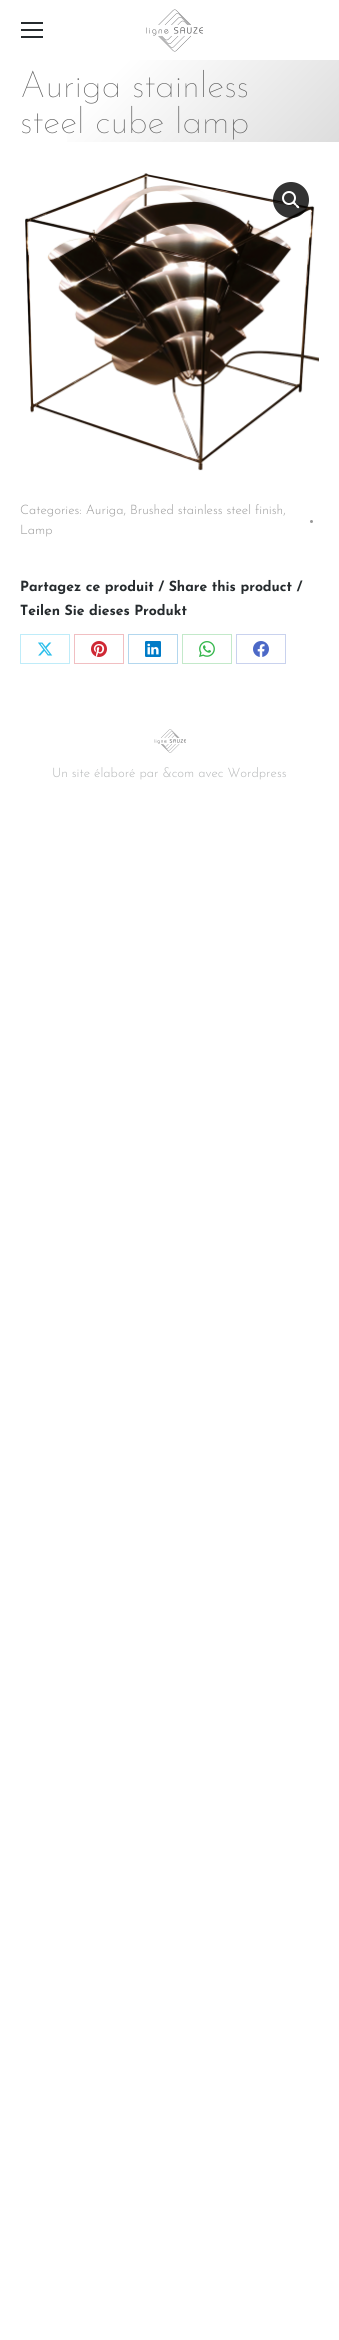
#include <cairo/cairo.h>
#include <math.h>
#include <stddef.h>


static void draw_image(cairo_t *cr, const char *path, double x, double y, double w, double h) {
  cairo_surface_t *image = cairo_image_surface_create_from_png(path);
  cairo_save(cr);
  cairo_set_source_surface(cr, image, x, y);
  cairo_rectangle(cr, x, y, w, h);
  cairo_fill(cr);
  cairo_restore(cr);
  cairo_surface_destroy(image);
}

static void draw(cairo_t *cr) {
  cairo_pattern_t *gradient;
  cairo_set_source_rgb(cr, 1, 1, 1);
  cairo_paint(cr);
  cairo_set_source_rgb(cr, 38 / 255.0, 43 / 255.0, 46 / 255.0);
  cairo_rectangle(cr, 21, 22, 22, 2);
  cairo_fill(cr);
  cairo_rectangle(cr, 21, 29, 22, 2);
  cairo_fill(cr);
  cairo_rectangle(cr, 21, 36, 22, 2);
  cairo_fill(cr);
  draw_image(cr, "images/1.png", 146, 9, 57, 43);
  gradient = cairo_pattern_create_linear(64, -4.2, 275, 206);
  cairo_pattern_add_color_stop_rgba(gradient, 0.3, 1, 1, 1, 1);
  cairo_pattern_add_color_stop_rgba(gradient, 1, 221 / 255.0, 221 / 255.0, 221 / 255.0, 1);
  cairo_set_source(cr, gradient);
  cairo_pattern_destroy(gradient);
  cairo_rectangle(cr, 67, 60, 272, 82);
  cairo_fill(cr);
  draw_image(cr, "images/2.png", 25, 173, 294, 298);
  cairo_set_source_rgba(cr, 0, 0, 0, 0.8);
  cairo_arc(cr, 291, 200, 18, 0, 2 * M_PI);
  cairo_fill(cr);
  cairo_arc(cr, 289, 198, 6, 0, 2 * M_PI);
  cairo_set_source_rgb(cr, 1, 1, 1);
  cairo_stroke(cr);
  cairo_new_path(cr);
  cairo_move_to(cr, 293, 202);
  cairo_curve_to(cr, 294.5, 201, 296, 203.5, 296.5, 204.5);
  cairo_curve_to(cr, 297.5, 205, 300, 206.5, 299, 208);
  cairo_curve_to(cr, 297.5, 209, 296, 206.5, 295.5, 205.5);
  cairo_curve_to(cr, 294.5, 205, 292, 203.5, 293, 202);
  cairo_close_path(cr);
  cairo_fill(cr);
  cairo_set_source_rgb(cr, 153 / 255.0, 153 / 255.0, 153 / 255.0);
  cairo_arc(cr, 311.5, 521.5, 1.5, 0, 2 * M_PI);
  cairo_fill(cr);
  cairo_rectangle(cr, 20.5, 634.5, 49, 29);
  cairo_set_source_rgb(cr, 191 / 255.0, 236 / 255.0, 249 / 255.0);
  cairo_set_line_width(cr, 1);
  cairo_stroke(cr);
  draw_image(cr, "images/3.png", 38, 642, 15, 14);
  cairo_rectangle(cr, 74.5, 634.5, 49, 29);
  cairo_set_source_rgb(cr, 241 / 255.0, 191 / 255.0, 194 / 255.0);
  cairo_stroke(cr);
  draw_image(cr, "images/4.png", 91, 641, 16, 16);
  cairo_rectangle(cr, 128.5, 634.5, 49, 29);
  cairo_set_source_rgb(cr, 179 / 255.0, 215 / 255.0, 238 / 255.0);
  cairo_stroke(cr);
  draw_image(cr, "images/5.png", 145, 641, 16, 16);
  cairo_rectangle(cr, 182.5, 634.5, 49, 29);
  cairo_set_source_rgb(cr, 195 / 255.0, 233 / 255.0, 202 / 255.0);
  cairo_stroke(cr);
  draw_image(cr, "images/6.png", 199, 641, 16, 16);
  cairo_rectangle(cr, 236.5, 634.5, 49, 29);
  cairo_set_source_rgb(cr, 201 / 255.0, 210 / 255.0, 238 / 255.0);
  cairo_stroke(cr);
  draw_image(cr, "images/7.png", 253, 641, 16, 16);
  draw_image(cr, "images/8.png", 154, 729, 32, 24);
  cairo_select_font_face(cr, "Josefin Sans Thin", CAIRO_FONT_SLANT_NORMAL, CAIRO_FONT_WEIGHT_NORMAL);
  cairo_set_font_size(cr, 36);
  cairo_set_source_rgb(cr, 91 / 255.0, 91 / 255.0, 91 / 255.0);
  cairo_move_to(cr, 20, 97);
  cairo_show_text(cr, "Auriga stainless");
  cairo_move_to(cr, 20, 133);
  cairo_show_text(cr, "steel cube lamp");
  cairo_select_font_face(cr, "Josefin Sans Light", CAIRO_FONT_SLANT_NORMAL, CAIRO_FONT_WEIGHT_NORMAL);
  cairo_set_font_size(cr, 13);
  cairo_set_source_rgb(cr, 153 / 255.0, 153 / 255.0, 153 / 255.0);
  cairo_move_to(cr, 20, 514);
  cairo_show_text(cr, "Categories: Auriga, Brushed stainless steel finish,");
  cairo_move_to(cr, 20, 534);
  cairo_show_text(cr, "Lamp");
  cairo_select_font_face(cr, "Josefin Sans", CAIRO_FONT_SLANT_NORMAL, CAIRO_FONT_WEIGHT_BOLD);
  cairo_set_font_size(cr, 14);
  cairo_set_source_rgb(cr, 38 / 255.0, 43 / 255.0, 46 / 255.0);
  cairo_move_to(cr, 20, 591);
  cairo_show_text(cr, "Partagez ce produit / Share this product /");
  cairo_move_to(cr, 20, 615);
  cairo_show_text(cr, "Teilen Sie dieses Produkt");
  cairo_select_font_face(cr, "Josefin Sans Light", CAIRO_FONT_SLANT_NORMAL, CAIRO_FONT_WEIGHT_NORMAL);
  cairo_set_font_size(cr, 13);
  cairo_set_source_rgb(cr, 179 / 255.0, 181 / 255.0, 182 / 255.0);
  cairo_move_to(cr, 52, 777);
  cairo_show_text(cr, "Un site élaboré par &com avec Wordpress");
}

int main(void) {
  cairo_surface_t *surface = cairo_image_surface_create(CAIRO_FORMAT_RGB24, 339, 2340);
  cairo_t *cr = cairo_create(surface);
  cairo_font_options_t *options = cairo_font_options_create();
  cairo_font_options_set_hint_metrics(options, CAIRO_HINT_METRICS_OFF);
  cairo_font_options_set_hint_style(options, CAIRO_HINT_STYLE_NONE);
  cairo_set_font_options(cr, options);
  cairo_set_miter_limit(cr, 4);
  draw(cr);
  cairo_surface_write_to_png(surface, "out.png");
  cairo_font_options_destroy(options);
  cairo_destroy(cr);
  cairo_surface_destroy(surface);
  return 0;
}
